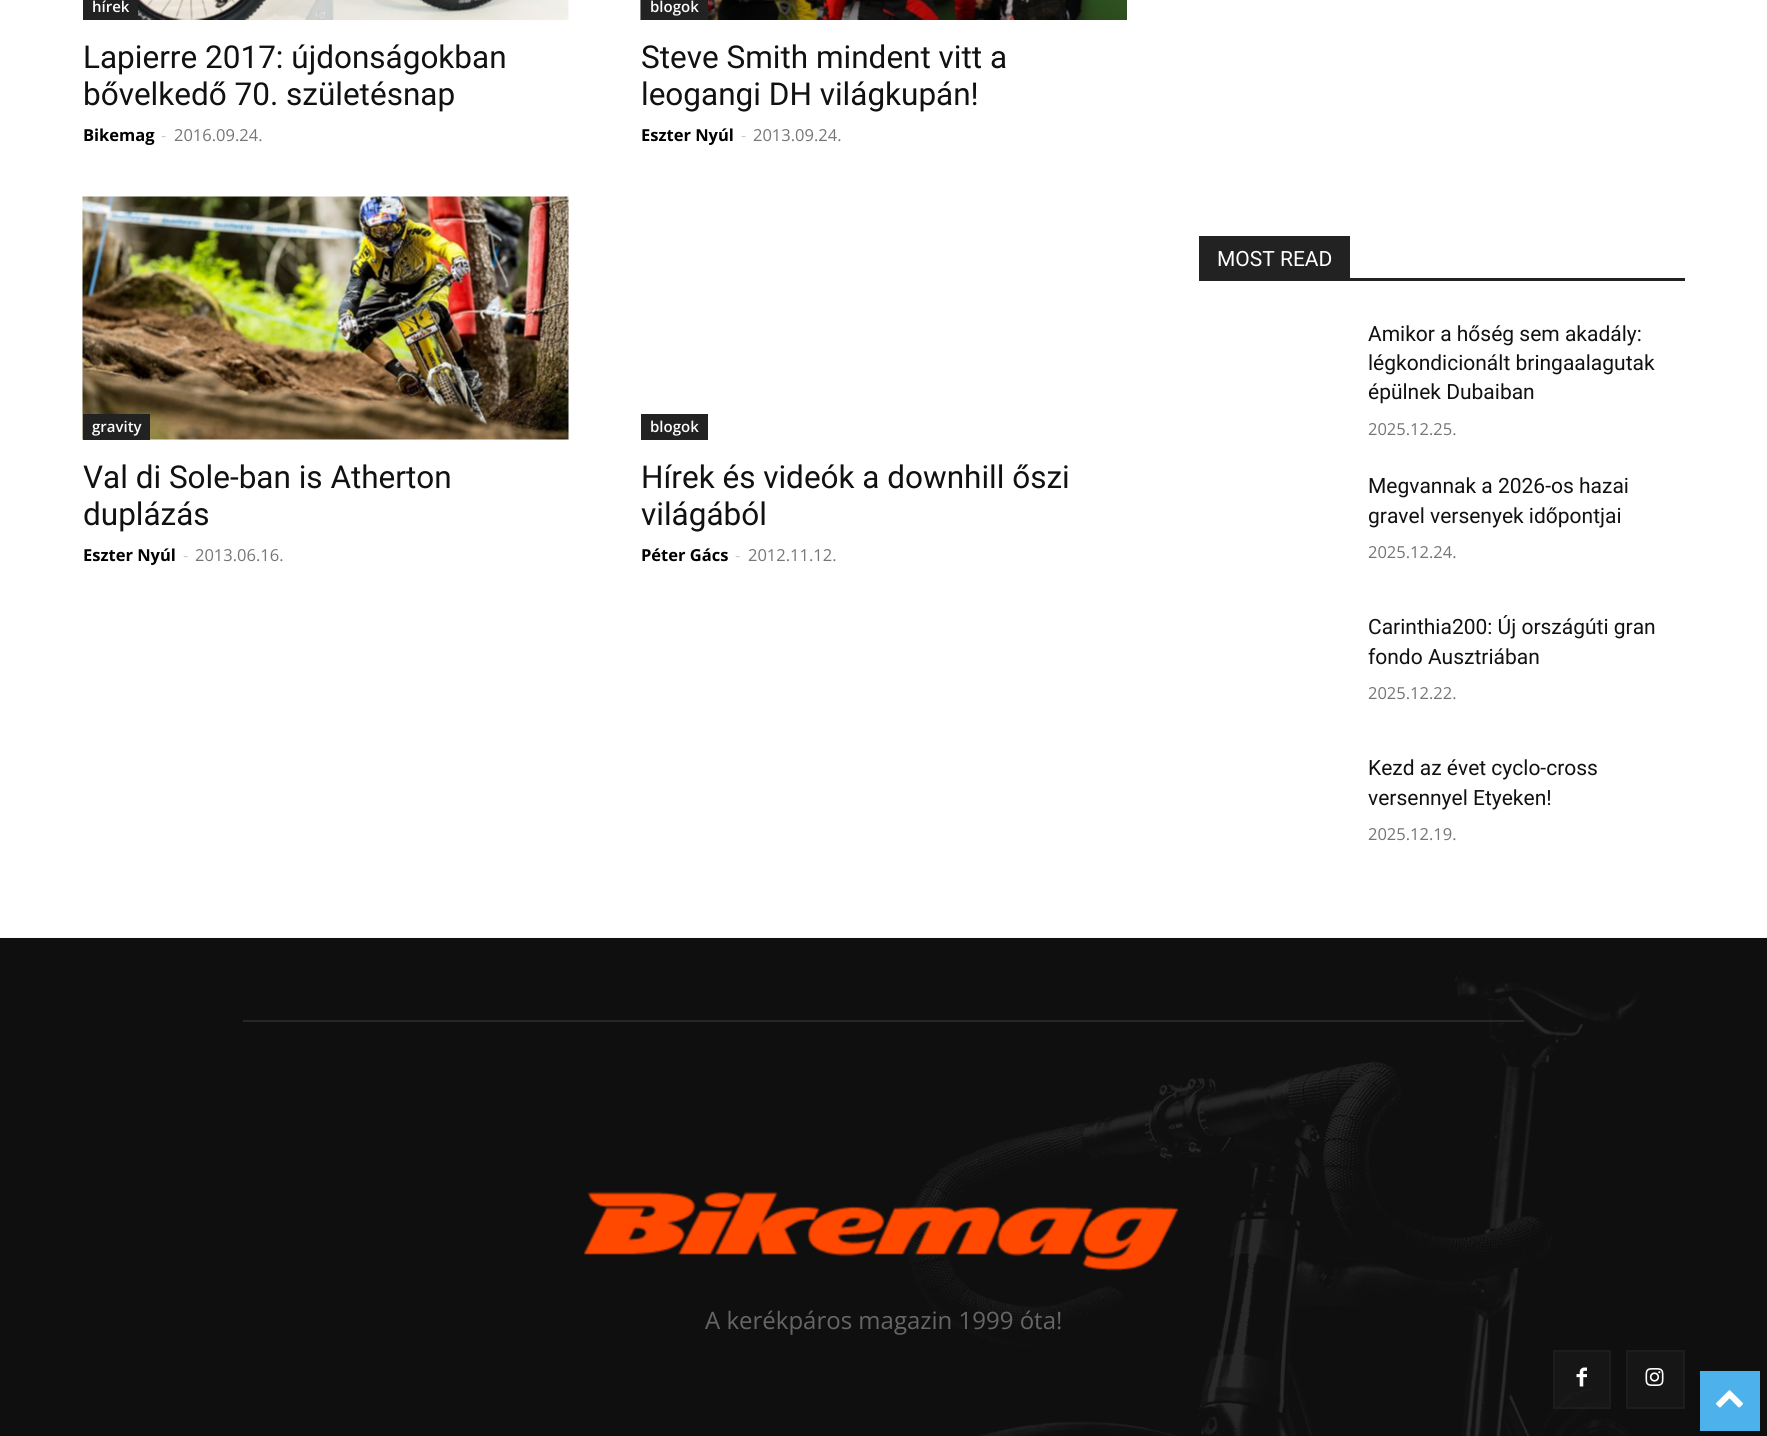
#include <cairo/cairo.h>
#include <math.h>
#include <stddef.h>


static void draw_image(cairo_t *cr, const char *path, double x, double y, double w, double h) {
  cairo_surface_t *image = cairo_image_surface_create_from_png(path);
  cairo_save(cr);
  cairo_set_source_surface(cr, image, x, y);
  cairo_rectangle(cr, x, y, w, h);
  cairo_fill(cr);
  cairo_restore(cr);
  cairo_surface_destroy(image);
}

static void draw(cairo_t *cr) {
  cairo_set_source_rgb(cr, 1, 1, 1);
  cairo_paint(cr);
  cairo_set_source_rgb(cr, 34 / 255.0, 34 / 255.0, 34 / 255.0);
  cairo_rectangle(cr, 83, 0, 55, 20);
  cairo_fill(cr);
  draw_image(cr, "images/1.png", 138, 0, 431, 20);
  draw_image(cr, "images/2.png", 640, 0, 487, 20);
  cairo_rectangle(cr, 641, 0, 67, 20);
  cairo_fill(cr);
  draw_image(cr, "images/3.png", 82, 196, 487, 244);
  cairo_rectangle(cr, 83, 414, 67, 26);
  cairo_fill(cr);
  cairo_rectangle(cr, 641, 414, 67, 26);
  cairo_fill(cr);
  cairo_rectangle(cr, 1199, 278, 486, 3);
  cairo_fill(cr);
  cairo_rectangle(cr, 1199, 236, 151, 42);
  cairo_fill(cr);
  cairo_set_source_rgb(cr, 17 / 255.0, 17 / 255.0, 17 / 255.0);
  cairo_rectangle(cr, 0, 938, 1767, 498);
  cairo_fill(cr);
  draw_image(cr, "images/4.png", 0, 937, 1767, 499);
  cairo_set_source_rgba(cr, 1, 1, 1, 0.1);
  cairo_rectangle(cr, 243, 1020, 1281, 2);
  cairo_fill(cr);
  draw_image(cr, "images/5.png", 584, 1191, 595, 81);
  cairo_set_source_rgba(cr, 1, 1, 1, 0.03);
  cairo_rectangle(cr, 1553, 1350, 58, 59);
  cairo_fill(cr);
  cairo_rectangle(cr, 1554, 1351, 56, 57);
  cairo_stroke(cr);
  draw_image(cr, "images/6.png", 1576, 1367, 11, 20);
  cairo_set_source_rgb(cr, 22 / 255.0, 22 / 255.0, 22 / 255.0);
  cairo_rectangle(cr, 1627, 1351, 57, 57);
  cairo_fill_preserve(cr);
  cairo_set_source_rgb(cr, 29 / 255.0, 29 / 255.0, 29 / 255.0);
  cairo_stroke(cr);
  draw_image(cr, "images/7.png", 1645, 1368, 19, 18);
  cairo_set_source_rgb(cr, 77 / 255.0, 178 / 255.0, 236 / 255.0);
  cairo_rectangle(cr, 1700, 1371, 60, 60);
  cairo_fill(cr);
  draw_image(cr, "images/8.png", 1716, 1390, 27, 18);
  cairo_select_font_face(cr, "Open Sans SemiBold", CAIRO_FONT_SLANT_NORMAL, CAIRO_FONT_WEIGHT_NORMAL);
  cairo_set_font_size(cr, 15);
  cairo_set_source_rgb(cr, 1, 1, 1);
  cairo_move_to(cr, 92, 12);
  cairo_show_text(cr, "hírek");
  cairo_select_font_face(cr, "Roboto", CAIRO_FONT_SLANT_NORMAL, CAIRO_FONT_WEIGHT_NORMAL);
  cairo_set_font_size(cr, 31.5);
  cairo_set_source_rgb(cr, 17 / 255.0, 17 / 255.0, 17 / 255.0);
  cairo_move_to(cr, 83, 68);
  cairo_show_text(cr, "Lapierre 2017: újdonságokban");
  cairo_move_to(cr, 83, 105);
  cairo_show_text(cr, "bővelkedő 70. születésnap");
  cairo_select_font_face(cr, "Open Sans", CAIRO_FONT_SLANT_NORMAL, CAIRO_FONT_WEIGHT_BOLD);
  cairo_set_font_size(cr, 16.5);
  cairo_set_source_rgb(cr, 0, 0, 0);
  cairo_move_to(cr, 83, 141);
  cairo_show_text(cr, "Bikemag");
  cairo_select_font_face(cr, "Open Sans", CAIRO_FONT_SLANT_NORMAL, CAIRO_FONT_WEIGHT_NORMAL);
  cairo_set_source_rgb(cr, 204 / 255.0, 204 / 255.0, 204 / 255.0);
  cairo_move_to(cr, 161, 141);
  cairo_show_text(cr, "-");
  cairo_set_source_rgb(cr, 118 / 255.0, 118 / 255.0, 118 / 255.0);
  cairo_move_to(cr, 174, 141);
  cairo_show_text(cr, "2016.09.24.");
  cairo_select_font_face(cr, "Open Sans SemiBold", CAIRO_FONT_SLANT_NORMAL, CAIRO_FONT_WEIGHT_NORMAL);
  cairo_set_font_size(cr, 15);
  cairo_set_source_rgb(cr, 1, 1, 1);
  cairo_move_to(cr, 650, 12);
  cairo_show_text(cr, "blogok");
  cairo_select_font_face(cr, "Roboto", CAIRO_FONT_SLANT_NORMAL, CAIRO_FONT_WEIGHT_NORMAL);
  cairo_set_font_size(cr, 31.5);
  cairo_set_source_rgb(cr, 17 / 255.0, 17 / 255.0, 17 / 255.0);
  cairo_move_to(cr, 641, 68);
  cairo_show_text(cr, "Steve Smith mindent vitt a");
  cairo_move_to(cr, 641, 105);
  cairo_show_text(cr, "leogangi DH világkupán!");
  cairo_select_font_face(cr, "Open Sans", CAIRO_FONT_SLANT_NORMAL, CAIRO_FONT_WEIGHT_BOLD);
  cairo_set_font_size(cr, 16.5);
  cairo_set_source_rgb(cr, 0, 0, 0);
  cairo_move_to(cr, 641, 141);
  cairo_show_text(cr, "Eszter Nyúl");
  cairo_select_font_face(cr, "Open Sans", CAIRO_FONT_SLANT_NORMAL, CAIRO_FONT_WEIGHT_NORMAL);
  cairo_set_source_rgb(cr, 204 / 255.0, 204 / 255.0, 204 / 255.0);
  cairo_move_to(cr, 741, 141);
  cairo_show_text(cr, "-");
  cairo_set_source_rgb(cr, 118 / 255.0, 118 / 255.0, 118 / 255.0);
  cairo_move_to(cr, 753, 141);
  cairo_show_text(cr, "2013.09.24.");
  cairo_select_font_face(cr, "Open Sans SemiBold", CAIRO_FONT_SLANT_NORMAL, CAIRO_FONT_WEIGHT_NORMAL);
  cairo_set_font_size(cr, 15);
  cairo_set_source_rgb(cr, 1, 1, 1);
  cairo_move_to(cr, 92, 432);
  cairo_show_text(cr, "gravity");
  cairo_select_font_face(cr, "Roboto", CAIRO_FONT_SLANT_NORMAL, CAIRO_FONT_WEIGHT_NORMAL);
  cairo_set_font_size(cr, 31.5);
  cairo_set_source_rgb(cr, 17 / 255.0, 17 / 255.0, 17 / 255.0);
  cairo_move_to(cr, 83, 488);
  cairo_show_text(cr, "Val di Sole-ban is Atherton");
  cairo_move_to(cr, 83, 525);
  cairo_show_text(cr, "duplázás");
  cairo_select_font_face(cr, "Open Sans", CAIRO_FONT_SLANT_NORMAL, CAIRO_FONT_WEIGHT_BOLD);
  cairo_set_font_size(cr, 16.5);
  cairo_set_source_rgb(cr, 0, 0, 0);
  cairo_move_to(cr, 83, 561);
  cairo_show_text(cr, "Eszter Nyúl");
  cairo_select_font_face(cr, "Open Sans", CAIRO_FONT_SLANT_NORMAL, CAIRO_FONT_WEIGHT_NORMAL);
  cairo_set_source_rgb(cr, 204 / 255.0, 204 / 255.0, 204 / 255.0);
  cairo_move_to(cr, 183, 561);
  cairo_show_text(cr, "-");
  cairo_set_source_rgb(cr, 118 / 255.0, 118 / 255.0, 118 / 255.0);
  cairo_move_to(cr, 195, 561);
  cairo_show_text(cr, "2013.06.16.");
  cairo_select_font_face(cr, "Open Sans SemiBold", CAIRO_FONT_SLANT_NORMAL, CAIRO_FONT_WEIGHT_NORMAL);
  cairo_set_font_size(cr, 15);
  cairo_set_source_rgb(cr, 1, 1, 1);
  cairo_move_to(cr, 650, 432);
  cairo_show_text(cr, "blogok");
  cairo_select_font_face(cr, "Roboto", CAIRO_FONT_SLANT_NORMAL, CAIRO_FONT_WEIGHT_NORMAL);
  cairo_set_font_size(cr, 31.5);
  cairo_set_source_rgb(cr, 17 / 255.0, 17 / 255.0, 17 / 255.0);
  cairo_move_to(cr, 641, 488);
  cairo_show_text(cr, "Hírek és videók a downhill őszi");
  cairo_move_to(cr, 641, 525);
  cairo_show_text(cr, "világából");
  cairo_select_font_face(cr, "Open Sans", CAIRO_FONT_SLANT_NORMAL, CAIRO_FONT_WEIGHT_BOLD);
  cairo_set_font_size(cr, 16.5);
  cairo_set_source_rgb(cr, 0, 0, 0);
  cairo_move_to(cr, 641, 561);
  cairo_show_text(cr, "Péter Gács");
  cairo_select_font_face(cr, "Open Sans", CAIRO_FONT_SLANT_NORMAL, CAIRO_FONT_WEIGHT_NORMAL);
  cairo_set_source_rgb(cr, 204 / 255.0, 204 / 255.0, 204 / 255.0);
  cairo_move_to(cr, 735, 561);
  cairo_show_text(cr, "-");
  cairo_set_source_rgb(cr, 118 / 255.0, 118 / 255.0, 118 / 255.0);
  cairo_move_to(cr, 748, 561);
  cairo_show_text(cr, "2012.11.12.");
  cairo_select_font_face(cr, "Roboto", CAIRO_FONT_SLANT_NORMAL, CAIRO_FONT_WEIGHT_NORMAL);
  cairo_set_font_size(cr, 21);
  cairo_set_source_rgb(cr, 1, 1, 1);
  cairo_move_to(cr, 1217, 266);
  cairo_show_text(cr, "MOST READ");
  cairo_set_source_rgb(cr, 17 / 255.0, 17 / 255.0, 17 / 255.0);
  cairo_move_to(cr, 1368, 341);
  cairo_show_text(cr, "Amikor a hőség sem akadály:");
  cairo_move_to(cr, 1368, 370);
  cairo_show_text(cr, "légkondicionált bringaalagutak");
  cairo_move_to(cr, 1368, 399);
  cairo_show_text(cr, "épülnek Dubaiban");
  cairo_select_font_face(cr, "Open Sans", CAIRO_FONT_SLANT_NORMAL, CAIRO_FONT_WEIGHT_NORMAL);
  cairo_set_font_size(cr, 16.5);
  cairo_set_source_rgb(cr, 118 / 255.0, 118 / 255.0, 118 / 255.0);
  cairo_move_to(cr, 1368, 435);
  cairo_show_text(cr, "2025.12.25.");
  cairo_select_font_face(cr, "Roboto", CAIRO_FONT_SLANT_NORMAL, CAIRO_FONT_WEIGHT_NORMAL);
  cairo_set_font_size(cr, 21);
  cairo_set_source_rgb(cr, 17 / 255.0, 17 / 255.0, 17 / 255.0);
  cairo_move_to(cr, 1368, 493);
  cairo_show_text(cr, "Megvannak a 2026-os hazai");
  cairo_move_to(cr, 1368, 523);
  cairo_show_text(cr, "gravel versenyek időpontjai");
  cairo_select_font_face(cr, "Open Sans", CAIRO_FONT_SLANT_NORMAL, CAIRO_FONT_WEIGHT_NORMAL);
  cairo_set_font_size(cr, 16.5);
  cairo_set_source_rgb(cr, 118 / 255.0, 118 / 255.0, 118 / 255.0);
  cairo_move_to(cr, 1368, 558);
  cairo_show_text(cr, "2025.12.24.");
  cairo_select_font_face(cr, "Roboto", CAIRO_FONT_SLANT_NORMAL, CAIRO_FONT_WEIGHT_NORMAL);
  cairo_set_font_size(cr, 21);
  cairo_set_source_rgb(cr, 17 / 255.0, 17 / 255.0, 17 / 255.0);
  cairo_move_to(cr, 1368, 634);
  cairo_show_text(cr, "Carinthia200: Új országúti gran");
  cairo_move_to(cr, 1368, 664);
  cairo_show_text(cr, "fondo Ausztriában");
  cairo_select_font_face(cr, "Open Sans", CAIRO_FONT_SLANT_NORMAL, CAIRO_FONT_WEIGHT_NORMAL);
  cairo_set_font_size(cr, 16.5);
  cairo_set_source_rgb(cr, 118 / 255.0, 118 / 255.0, 118 / 255.0);
  cairo_move_to(cr, 1368, 699);
  cairo_show_text(cr, "2025.12.22.");
  cairo_select_font_face(cr, "Roboto", CAIRO_FONT_SLANT_NORMAL, CAIRO_FONT_WEIGHT_NORMAL);
  cairo_set_font_size(cr, 21);
  cairo_set_source_rgb(cr, 17 / 255.0, 17 / 255.0, 17 / 255.0);
  cairo_move_to(cr, 1368, 775);
  cairo_show_text(cr, "Kezd az évet cyclo-cross");
  cairo_move_to(cr, 1368, 805);
  cairo_show_text(cr, "versennyel Etyeken!");
  cairo_select_font_face(cr, "Open Sans", CAIRO_FONT_SLANT_NORMAL, CAIRO_FONT_WEIGHT_NORMAL);
  cairo_set_font_size(cr, 16.5);
  cairo_set_source_rgb(cr, 118 / 255.0, 118 / 255.0, 118 / 255.0);
  cairo_move_to(cr, 1368, 840);
  cairo_show_text(cr, "2025.12.19.");
  cairo_set_font_size(cr, 24);
  cairo_set_source_rgb(cr, 102 / 255.0, 102 / 255.0, 102 / 255.0);
  cairo_move_to(cr, 705, 1329);
  cairo_show_text(cr, "A kerékpáros magazin 1999 óta!");
}

int main(void) {
  cairo_surface_t *surface = cairo_image_surface_create(CAIRO_FORMAT_RGB24, 1767, 1436);
  cairo_t *cr = cairo_create(surface);
  cairo_font_options_t *options = cairo_font_options_create();
  cairo_font_options_set_hint_metrics(options, CAIRO_HINT_METRICS_OFF);
  cairo_font_options_set_hint_style(options, CAIRO_HINT_STYLE_NONE);
  cairo_set_font_options(cr, options);
  cairo_set_miter_limit(cr, 4);
  draw(cr);
  cairo_surface_write_to_png(surface, "out.png");
  cairo_font_options_destroy(options);
  cairo_destroy(cr);
  cairo_surface_destroy(surface);
  return 0;
}
